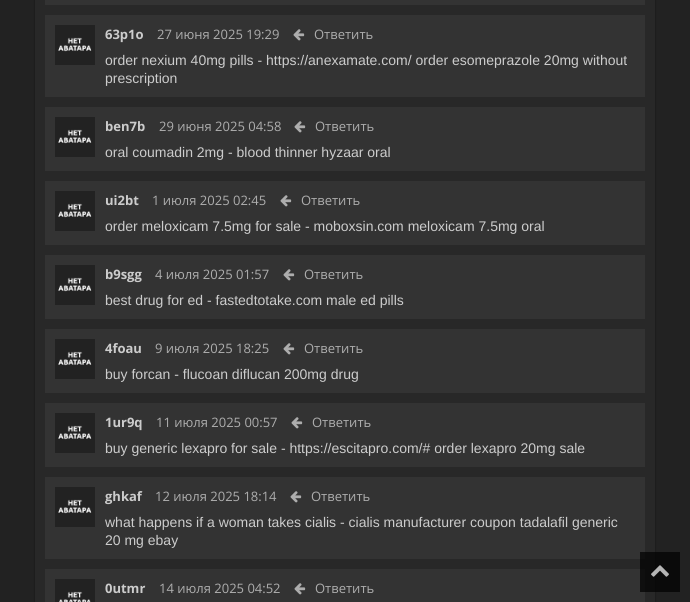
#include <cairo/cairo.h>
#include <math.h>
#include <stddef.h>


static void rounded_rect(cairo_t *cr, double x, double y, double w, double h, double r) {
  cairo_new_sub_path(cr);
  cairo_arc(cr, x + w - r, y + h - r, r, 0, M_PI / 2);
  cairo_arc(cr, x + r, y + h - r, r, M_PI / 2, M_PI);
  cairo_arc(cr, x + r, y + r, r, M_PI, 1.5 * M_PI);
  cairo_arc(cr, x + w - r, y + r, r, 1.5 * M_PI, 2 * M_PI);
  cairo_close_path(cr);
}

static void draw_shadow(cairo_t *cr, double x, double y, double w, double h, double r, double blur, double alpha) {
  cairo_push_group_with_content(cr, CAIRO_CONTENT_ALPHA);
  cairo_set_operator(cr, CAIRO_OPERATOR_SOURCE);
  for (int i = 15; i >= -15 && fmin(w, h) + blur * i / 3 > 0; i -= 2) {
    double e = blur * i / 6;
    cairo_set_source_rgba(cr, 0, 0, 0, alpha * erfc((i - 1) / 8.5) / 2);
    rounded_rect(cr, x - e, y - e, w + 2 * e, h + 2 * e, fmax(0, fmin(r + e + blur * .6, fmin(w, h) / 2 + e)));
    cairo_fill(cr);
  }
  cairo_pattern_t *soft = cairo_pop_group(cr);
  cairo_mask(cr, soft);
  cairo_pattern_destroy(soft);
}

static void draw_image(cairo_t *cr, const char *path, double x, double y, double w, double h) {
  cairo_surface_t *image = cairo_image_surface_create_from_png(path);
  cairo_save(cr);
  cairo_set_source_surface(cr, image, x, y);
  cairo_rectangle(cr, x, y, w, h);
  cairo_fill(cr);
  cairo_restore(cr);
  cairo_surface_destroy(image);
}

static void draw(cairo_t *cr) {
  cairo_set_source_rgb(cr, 34 / 255.0, 34 / 255.0, 34 / 255.0);
  cairo_paint(cr);
  cairo_set_source_rgb(cr, 0, 0, 0);
  draw_shadow(cr, 35, -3, 620, 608, 0, 1, 0.4);
  cairo_set_source_rgb(cr, 40 / 255.0, 40 / 255.0, 40 / 255.0);
  cairo_rectangle(cr, 35, 0, 620, 602);
  cairo_fill(cr);
  cairo_set_source_rgb(cr, 51 / 255.0, 51 / 255.0, 51 / 255.0);
  cairo_rectangle(cr, 45, 0, 600, 5);
  cairo_fill(cr);
  cairo_rectangle(cr, 45, 15, 600, 82);
  cairo_fill(cr);
  draw_image(cr, "images/1.png", 55, 25, 40, 40);
  draw_image(cr, "images/2.png", 293, 29, 12, 12);
  cairo_rectangle(cr, 45, 107, 600, 64);
  cairo_fill(cr);
  draw_image(cr, "images/1.png", 55, 117, 40, 40);
  draw_image(cr, "images/2.png", 294, 121, 12, 12);
  cairo_rectangle(cr, 45, 181, 600, 64);
  cairo_fill(cr);
  draw_image(cr, "images/1.png", 55, 191, 40, 40);
  draw_image(cr, "images/2.png", 280, 195, 12, 12);
  cairo_rectangle(cr, 45, 255, 600, 64);
  cairo_fill(cr);
  draw_image(cr, "images/1.png", 55, 265, 40, 40);
  draw_image(cr, "images/2.png", 283, 269, 12, 12);
  cairo_rectangle(cr, 45, 329, 600, 64);
  cairo_fill(cr);
  draw_image(cr, "images/1.png", 55, 339, 40, 40);
  draw_image(cr, "images/2.png", 283, 343, 12, 12);
  cairo_rectangle(cr, 45, 403, 600, 64);
  cairo_fill(cr);
  draw_image(cr, "images/1.png", 55, 413, 40, 40);
  draw_image(cr, "images/2.png", 291, 417, 12, 12);
  cairo_rectangle(cr, 45, 477, 600, 82);
  cairo_fill(cr);
  draw_image(cr, "images/1.png", 55, 487, 40, 40);
  draw_image(cr, "images/2.png", 290, 491, 12, 12);
  cairo_rectangle(cr, 45, 569, 600, 33);
  cairo_fill(cr);
  draw_image(cr, "images/3.png", 55, 579, 40, 23);
  draw_image(cr, "images/2.png", 294, 583, 12, 12);
  cairo_set_source_rgba(cr, 0, 0, 0, 0.7);
  cairo_rectangle(cr, 640, 552, 40, 40);
  cairo_fill(cr);
  draw_image(cr, "images/4.png", 651, 565, 18, 12);
  cairo_select_font_face(cr, "Open Sans", CAIRO_FONT_SLANT_NORMAL, CAIRO_FONT_WEIGHT_BOLD);
  cairo_set_font_size(cr, 13);
  cairo_set_source_rgb(cr, 204 / 255.0, 204 / 255.0, 204 / 255.0);
  cairo_move_to(cr, 105, 39);
  cairo_show_text(cr, "63p1o");
  cairo_select_font_face(cr, "Open Sans", CAIRO_FONT_SLANT_NORMAL, CAIRO_FONT_WEIGHT_NORMAL);
  cairo_set_source_rgb(cr, 173 / 255.0, 173 / 255.0, 173 / 255.0);
  cairo_move_to(cr, 157, 39);
  cairo_show_text(cr, "27 июня 2025 19:29");
  cairo_move_to(cr, 314, 39);
  cairo_show_text(cr, "Ответить");
  cairo_select_font_face(cr, "Liberation Sans", CAIRO_FONT_SLANT_NORMAL, CAIRO_FONT_WEIGHT_NORMAL);
  cairo_set_font_size(cr, 14);
  cairo_set_source_rgb(cr, 204 / 255.0, 204 / 255.0, 204 / 255.0);
  cairo_move_to(cr, 105, 65);
  cairo_show_text(cr, "order nexium 40mg pills - https://anexamate.com/ order esomeprazole 20mg without");
  cairo_move_to(cr, 105, 83);
  cairo_show_text(cr, "prescription");
  cairo_select_font_face(cr, "Open Sans", CAIRO_FONT_SLANT_NORMAL, CAIRO_FONT_WEIGHT_BOLD);
  cairo_set_font_size(cr, 13);
  cairo_move_to(cr, 105, 131);
  cairo_show_text(cr, "ben7b");
  cairo_select_font_face(cr, "Open Sans", CAIRO_FONT_SLANT_NORMAL, CAIRO_FONT_WEIGHT_NORMAL);
  cairo_set_source_rgb(cr, 173 / 255.0, 173 / 255.0, 173 / 255.0);
  cairo_move_to(cr, 159, 131);
  cairo_show_text(cr, "29 июня 2025 04:58");
  cairo_move_to(cr, 315, 131);
  cairo_show_text(cr, "Ответить");
  cairo_select_font_face(cr, "Liberation Sans", CAIRO_FONT_SLANT_NORMAL, CAIRO_FONT_WEIGHT_NORMAL);
  cairo_set_font_size(cr, 14);
  cairo_set_source_rgb(cr, 204 / 255.0, 204 / 255.0, 204 / 255.0);
  cairo_move_to(cr, 105, 157);
  cairo_show_text(cr, "oral coumadin 2mg - blood thinner hyzaar oral");
  cairo_select_font_face(cr, "Open Sans", CAIRO_FONT_SLANT_NORMAL, CAIRO_FONT_WEIGHT_BOLD);
  cairo_set_font_size(cr, 13);
  cairo_move_to(cr, 105, 205);
  cairo_show_text(cr, "ui2bt");
  cairo_select_font_face(cr, "Open Sans", CAIRO_FONT_SLANT_NORMAL, CAIRO_FONT_WEIGHT_NORMAL);
  cairo_set_source_rgb(cr, 173 / 255.0, 173 / 255.0, 173 / 255.0);
  cairo_move_to(cr, 152, 205);
  cairo_show_text(cr, "1 июля 2025 02:45");
  cairo_move_to(cr, 301, 205);
  cairo_show_text(cr, "Ответить");
  cairo_select_font_face(cr, "Liberation Sans", CAIRO_FONT_SLANT_NORMAL, CAIRO_FONT_WEIGHT_NORMAL);
  cairo_set_font_size(cr, 14);
  cairo_set_source_rgb(cr, 204 / 255.0, 204 / 255.0, 204 / 255.0);
  cairo_move_to(cr, 105, 231);
  cairo_show_text(cr, "order meloxicam 7.5mg for sale - moboxsin.com meloxicam 7.5mg oral");
  cairo_select_font_face(cr, "Open Sans", CAIRO_FONT_SLANT_NORMAL, CAIRO_FONT_WEIGHT_BOLD);
  cairo_set_font_size(cr, 13);
  cairo_move_to(cr, 105, 279);
  cairo_show_text(cr, "b9sgg");
  cairo_select_font_face(cr, "Open Sans", CAIRO_FONT_SLANT_NORMAL, CAIRO_FONT_WEIGHT_NORMAL);
  cairo_set_source_rgb(cr, 173 / 255.0, 173 / 255.0, 173 / 255.0);
  cairo_move_to(cr, 155, 279);
  cairo_show_text(cr, "4 июля 2025 01:57");
  cairo_move_to(cr, 304, 279);
  cairo_show_text(cr, "Ответить");
  cairo_select_font_face(cr, "Liberation Sans", CAIRO_FONT_SLANT_NORMAL, CAIRO_FONT_WEIGHT_NORMAL);
  cairo_set_font_size(cr, 14);
  cairo_set_source_rgb(cr, 204 / 255.0, 204 / 255.0, 204 / 255.0);
  cairo_move_to(cr, 105, 305);
  cairo_show_text(cr, "best drug for ed - fastedtotake.com male ed pills");
  cairo_select_font_face(cr, "Open Sans", CAIRO_FONT_SLANT_NORMAL, CAIRO_FONT_WEIGHT_BOLD);
  cairo_set_font_size(cr, 13);
  cairo_move_to(cr, 105, 353);
  cairo_show_text(cr, "4foau");
  cairo_select_font_face(cr, "Open Sans", CAIRO_FONT_SLANT_NORMAL, CAIRO_FONT_WEIGHT_NORMAL);
  cairo_set_source_rgb(cr, 173 / 255.0, 173 / 255.0, 173 / 255.0);
  cairo_move_to(cr, 155, 353);
  cairo_show_text(cr, "9 июля 2025 18:25");
  cairo_move_to(cr, 304, 353);
  cairo_show_text(cr, "Ответить");
  cairo_select_font_face(cr, "Liberation Sans", CAIRO_FONT_SLANT_NORMAL, CAIRO_FONT_WEIGHT_NORMAL);
  cairo_set_font_size(cr, 14);
  cairo_set_source_rgb(cr, 204 / 255.0, 204 / 255.0, 204 / 255.0);
  cairo_move_to(cr, 105, 379);
  cairo_show_text(cr, "buy forcan - flucoan diflucan 200mg drug");
  cairo_select_font_face(cr, "Open Sans", CAIRO_FONT_SLANT_NORMAL, CAIRO_FONT_WEIGHT_BOLD);
  cairo_set_font_size(cr, 13);
  cairo_move_to(cr, 105, 427);
  cairo_show_text(cr, "1ur9q");
  cairo_select_font_face(cr, "Open Sans", CAIRO_FONT_SLANT_NORMAL, CAIRO_FONT_WEIGHT_NORMAL);
  cairo_set_source_rgb(cr, 173 / 255.0, 173 / 255.0, 173 / 255.0);
  cairo_move_to(cr, 156, 427);
  cairo_show_text(cr, "11 июля 2025 00:57");
  cairo_move_to(cr, 312, 427);
  cairo_show_text(cr, "Ответить");
  cairo_select_font_face(cr, "Liberation Sans", CAIRO_FONT_SLANT_NORMAL, CAIRO_FONT_WEIGHT_NORMAL);
  cairo_set_font_size(cr, 14);
  cairo_set_source_rgb(cr, 204 / 255.0, 204 / 255.0, 204 / 255.0);
  cairo_move_to(cr, 105, 453);
  cairo_show_text(cr, "buy generic lexapro for sale - https://escitapro.com/# order lexapro 20mg sale");
  cairo_select_font_face(cr, "Open Sans", CAIRO_FONT_SLANT_NORMAL, CAIRO_FONT_WEIGHT_BOLD);
  cairo_set_font_size(cr, 13);
  cairo_move_to(cr, 105, 501);
  cairo_show_text(cr, "ghkaf");
  cairo_select_font_face(cr, "Open Sans", CAIRO_FONT_SLANT_NORMAL, CAIRO_FONT_WEIGHT_NORMAL);
  cairo_set_source_rgb(cr, 173 / 255.0, 173 / 255.0, 173 / 255.0);
  cairo_move_to(cr, 155, 501);
  cairo_show_text(cr, "12 июля 2025 18:14");
  cairo_move_to(cr, 311, 501);
  cairo_show_text(cr, "Ответить");
  cairo_select_font_face(cr, "Liberation Sans", CAIRO_FONT_SLANT_NORMAL, CAIRO_FONT_WEIGHT_NORMAL);
  cairo_set_font_size(cr, 14);
  cairo_set_source_rgb(cr, 204 / 255.0, 204 / 255.0, 204 / 255.0);
  cairo_move_to(cr, 105, 527);
  cairo_show_text(cr, "what happens if a woman takes cialis - cialis manufacturer coupon tadalafil generic");
  cairo_move_to(cr, 105, 545);
  cairo_show_text(cr, "20 mg ebay");
  cairo_select_font_face(cr, "Open Sans", CAIRO_FONT_SLANT_NORMAL, CAIRO_FONT_WEIGHT_BOLD);
  cairo_set_font_size(cr, 13);
  cairo_move_to(cr, 105, 593);
  cairo_show_text(cr, "0utmr");
  cairo_select_font_face(cr, "Open Sans", CAIRO_FONT_SLANT_NORMAL, CAIRO_FONT_WEIGHT_NORMAL);
  cairo_set_source_rgb(cr, 173 / 255.0, 173 / 255.0, 173 / 255.0);
  cairo_move_to(cr, 159, 593);
  cairo_show_text(cr, "14 июля 2025 04:52");
  cairo_move_to(cr, 315, 593);
  cairo_show_text(cr, "Ответить");
}

int main(void) {
  cairo_surface_t *surface = cairo_image_surface_create(CAIRO_FORMAT_RGB24, 690, 602);
  cairo_t *cr = cairo_create(surface);
  cairo_font_options_t *options = cairo_font_options_create();
  cairo_font_options_set_hint_metrics(options, CAIRO_HINT_METRICS_OFF);
  cairo_font_options_set_hint_style(options, CAIRO_HINT_STYLE_NONE);
  cairo_set_font_options(cr, options);
  cairo_set_miter_limit(cr, 4);
  draw(cr);
  cairo_surface_write_to_png(surface, "out.png");
  cairo_font_options_destroy(options);
  cairo_destroy(cr);
  cairo_surface_destroy(surface);
  return 0;
}
